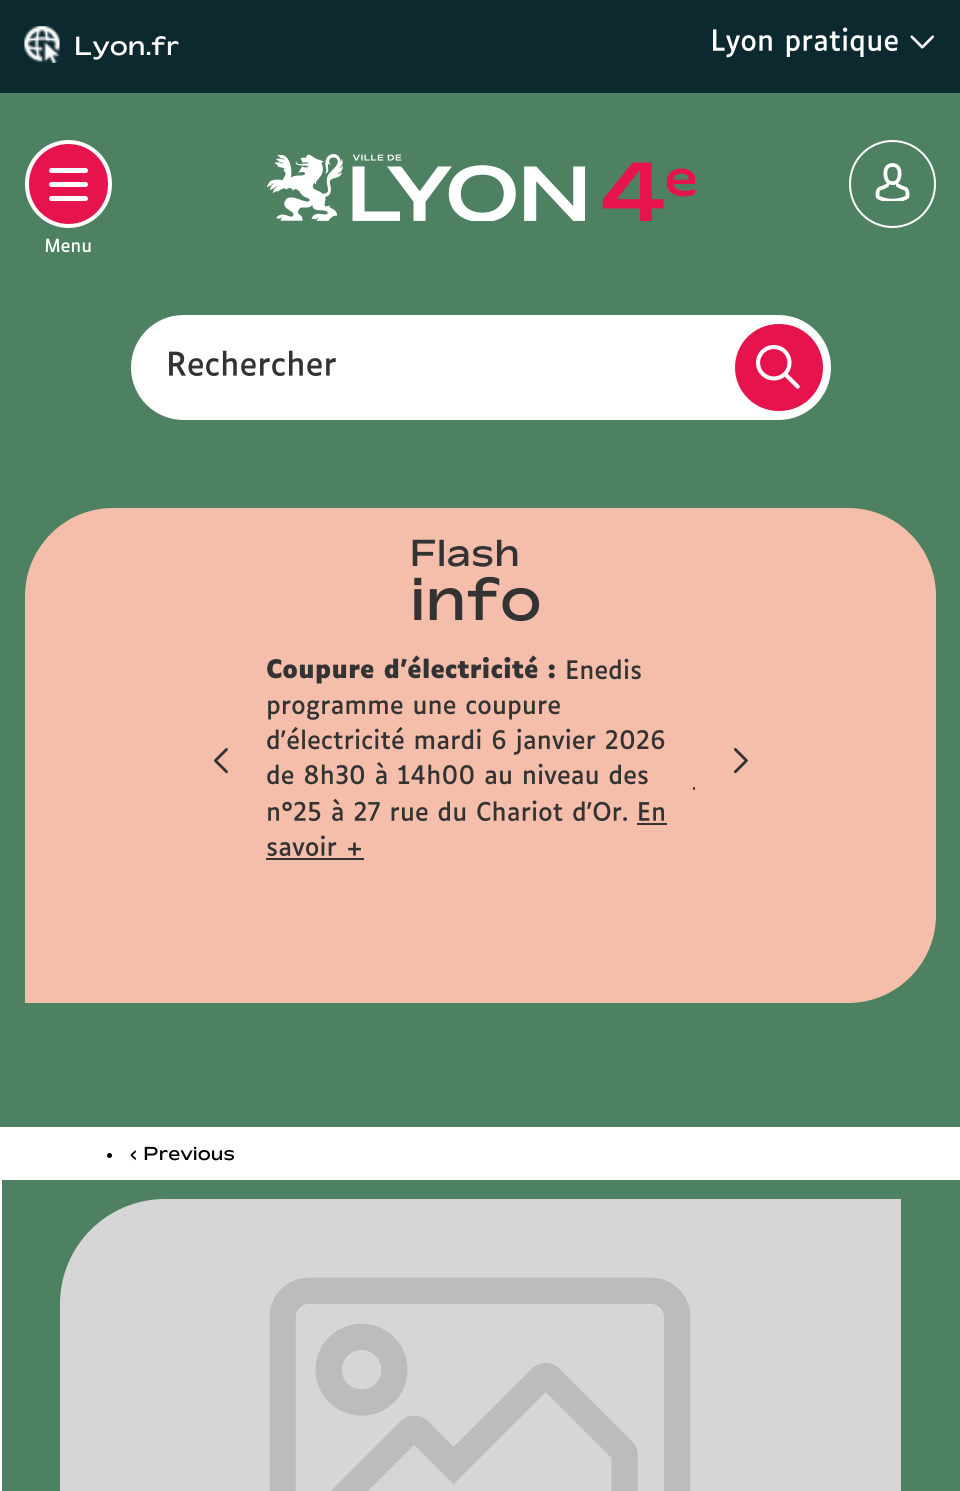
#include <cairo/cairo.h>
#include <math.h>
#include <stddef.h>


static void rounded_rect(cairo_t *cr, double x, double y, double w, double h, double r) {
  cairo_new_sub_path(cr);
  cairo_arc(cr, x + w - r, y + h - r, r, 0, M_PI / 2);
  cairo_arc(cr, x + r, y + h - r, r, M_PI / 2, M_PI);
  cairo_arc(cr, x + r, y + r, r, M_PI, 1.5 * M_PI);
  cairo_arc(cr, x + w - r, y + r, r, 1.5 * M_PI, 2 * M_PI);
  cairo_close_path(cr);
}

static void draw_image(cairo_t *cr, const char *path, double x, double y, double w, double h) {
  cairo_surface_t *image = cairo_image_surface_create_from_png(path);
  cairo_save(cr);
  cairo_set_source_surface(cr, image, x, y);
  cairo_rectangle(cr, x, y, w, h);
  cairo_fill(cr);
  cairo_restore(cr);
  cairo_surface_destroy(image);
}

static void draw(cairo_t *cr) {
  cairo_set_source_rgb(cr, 1, 1, 1);
  cairo_paint(cr);
  cairo_set_source_rgb(cr, 12 / 255.0, 41 / 255.0, 47 / 255.0);
  cairo_rectangle(cr, 0, 0, 960, 93);
  cairo_fill(cr);
  draw_image(cr, "images/1.png", 24, 26, 36, 37);
  draw_image(cr, "images/2.png", 713, 27, 185, 31);
  draw_image(cr, "images/3.png", 910, 35, 24, 14);
  cairo_set_source_rgb(cr, 78 / 255.0, 129 / 255.0, 97 / 255.0);
  cairo_rectangle(cr, 0, 93, 960, 1034);
  cairo_fill(cr);
  cairo_set_source_rgb(cr, 230 / 255.0, 19 / 255.0, 77 / 255.0);
  rounded_rect(cr, 27, 142, 83, 84, 41.5);
  cairo_fill_preserve(cr);
  cairo_set_source_rgb(cr, 1, 1, 1);
  cairo_set_line_width(cr, 4);
  cairo_stroke(cr);
  rounded_rect(cr, 49, 168, 39, 5, 2.5);
  cairo_fill(cr);
  rounded_rect(cr, 49, 182, 39, 5, 2.5);
  cairo_fill(cr);
  rounded_rect(cr, 49, 196, 39, 5, 2.5);
  cairo_fill(cr);
  draw_image(cr, "images/4.png", 45, 238, 46, 15);
  rounded_rect(cr, 850, 141, 85, 86, 42.5);
  cairo_set_line_width(cr, 2);
  cairo_stroke(cr);
  draw_image(cr, "images/5.png", 875, 163, 35, 38);
  rounded_rect(cr, 131, 315, 700, 105, 52.5);
  cairo_fill(cr);
  draw_image(cr, "images/6.png", 169, 350, 167, 26);
  cairo_set_source_rgb(cr, 230 / 255.0, 19 / 255.0, 77 / 255.0);
  rounded_rect(cr, 735, 324, 88, 87, 43.5);
  cairo_fill(cr);
  draw_image(cr, "images/7.png", 756, 345, 44, 44);
  draw_image(cr, "images/8.png", 267, 154, 428, 67);
  cairo_set_source_rgb(cr, 244 / 255.0, 190 / 255.0, 170 / 255.0);
  cairo_new_path(cr);
  cairo_move_to(cr, 113, 508);
  cairo_line_to(cr, 848, 508);
  cairo_curve_to(cr, 896.5, 508, 936, 547.5, 936, 596);
  cairo_line_to(cr, 936, 915);
  cairo_curve_to(cr, 936, 963.5, 896.5, 1003, 848, 1003);
  cairo_line_to(cr, 25, 1003);
  cairo_line_to(cr, 25, 596);
  cairo_curve_to(cr, 25, 547.5, 64.5, 508, 113, 508);
  cairo_close_path(cr);
  cairo_fill(cr);
  draw_image(cr, "images/9.png", 567, 658, 74, 22);
  draw_image(cr, "images/10.png", 268, 700, 292, 20);
  draw_image(cr, "images/11.png", 267, 727, 398, 28);
  draw_image(cr, "images/12.png", 267, 762, 381, 23);
  draw_image(cr, "images/13.png", 268, 798, 359, 23);
  draw_image(cr, "images/14.png", 639, 802, 26, 19);
  cairo_set_source_rgb(cr, 51 / 255.0, 51 / 255.0, 51 / 255.0);
  cairo_rectangle(cr, 637, 823, 30, 2);
  cairo_fill(cr);
  draw_image(cr, "images/15.png", 267, 835, 94, 21);
  cairo_rectangle(cr, 266, 858, 98, 2);
  cairo_fill(cr);
  draw_image(cr, "images/16.png", 693, 787, 2, 3);
  draw_image(cr, "images/17.png", 214, 748, 14, 26);
  draw_image(cr, "images/18.png", 733, 748, 15, 26);
  cairo_set_source_rgb(cr, 0, 0, 0);
  cairo_arc(cr, 109.5, 1155.5, 2.5, 0, 2 * M_PI);
  cairo_fill(cr);
  cairo_set_source_rgb(cr, 78 / 255.0, 129 / 255.0, 97 / 255.0);
  cairo_rectangle(cr, 2, 1180, 958, 311);
  cairo_fill(cr);
  cairo_set_source_rgb(cr, 214 / 255.0, 214 / 255.0, 214 / 255.0);
  cairo_new_path(cr);
  cairo_move_to(cr, 165, 1199);
  cairo_line_to(cr, 901, 1199);
  cairo_line_to(cr, 901, 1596);
  cairo_line_to(cr, 60, 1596);
  cairo_line_to(cr, 60, 1304);
  cairo_curve_to(cr, 60, 1246, 107, 1199, 165, 1199);
  cairo_close_path(cr);
  cairo_fill(cr);
  draw_image(cr, "images/19.png", 270, 1277, 421, 214);
  cairo_select_font_face(cr, "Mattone", CAIRO_FONT_SLANT_NORMAL, CAIRO_FONT_WEIGHT_NORMAL);
  cairo_set_font_size(cr, 24.5);
  cairo_set_source_rgb(cr, 1, 1, 1);
  cairo_move_to(cr, 74, 55);
  cairo_show_text(cr, "Lyon.fr");
  cairo_set_font_size(cr, 35);
  cairo_set_source_rgb(cr, 51 / 255.0, 51 / 255.0, 51 / 255.0);
  cairo_move_to(cr, 410, 566);
  cairo_show_text(cr, "Flash");
  cairo_set_font_size(cr, 56);
  cairo_move_to(cr, 410, 620);
  cairo_show_text(cr, "info");
  cairo_select_font_face(cr, "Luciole", CAIRO_FONT_SLANT_NORMAL, CAIRO_FONT_WEIGHT_BOLD);
  cairo_set_font_size(cr, 24.5);
  cairo_move_to(cr, 266, 678);
  cairo_show_text(cr, "Coupure d'électricité :");
  cairo_select_font_face(cr, "Mattone", CAIRO_FONT_SLANT_NORMAL, CAIRO_FONT_WEIGHT_NORMAL);
  cairo_set_font_size(cr, 17.5);
  cairo_set_source_rgb(cr, 0, 0, 0);
  cairo_move_to(cr, 130, 1160);
  cairo_show_text(cr, "‹ Previous");
}

int main(void) {
  cairo_surface_t *surface = cairo_image_surface_create(CAIRO_FORMAT_RGB24, 960, 1491);
  cairo_t *cr = cairo_create(surface);
  cairo_font_options_t *options = cairo_font_options_create();
  cairo_font_options_set_hint_metrics(options, CAIRO_HINT_METRICS_OFF);
  cairo_font_options_set_hint_style(options, CAIRO_HINT_STYLE_NONE);
  cairo_set_font_options(cr, options);
  cairo_set_miter_limit(cr, 4);
  draw(cr);
  cairo_surface_write_to_png(surface, "out.png");
  cairo_font_options_destroy(options);
  cairo_destroy(cr);
  cairo_surface_destroy(surface);
  return 0;
}
